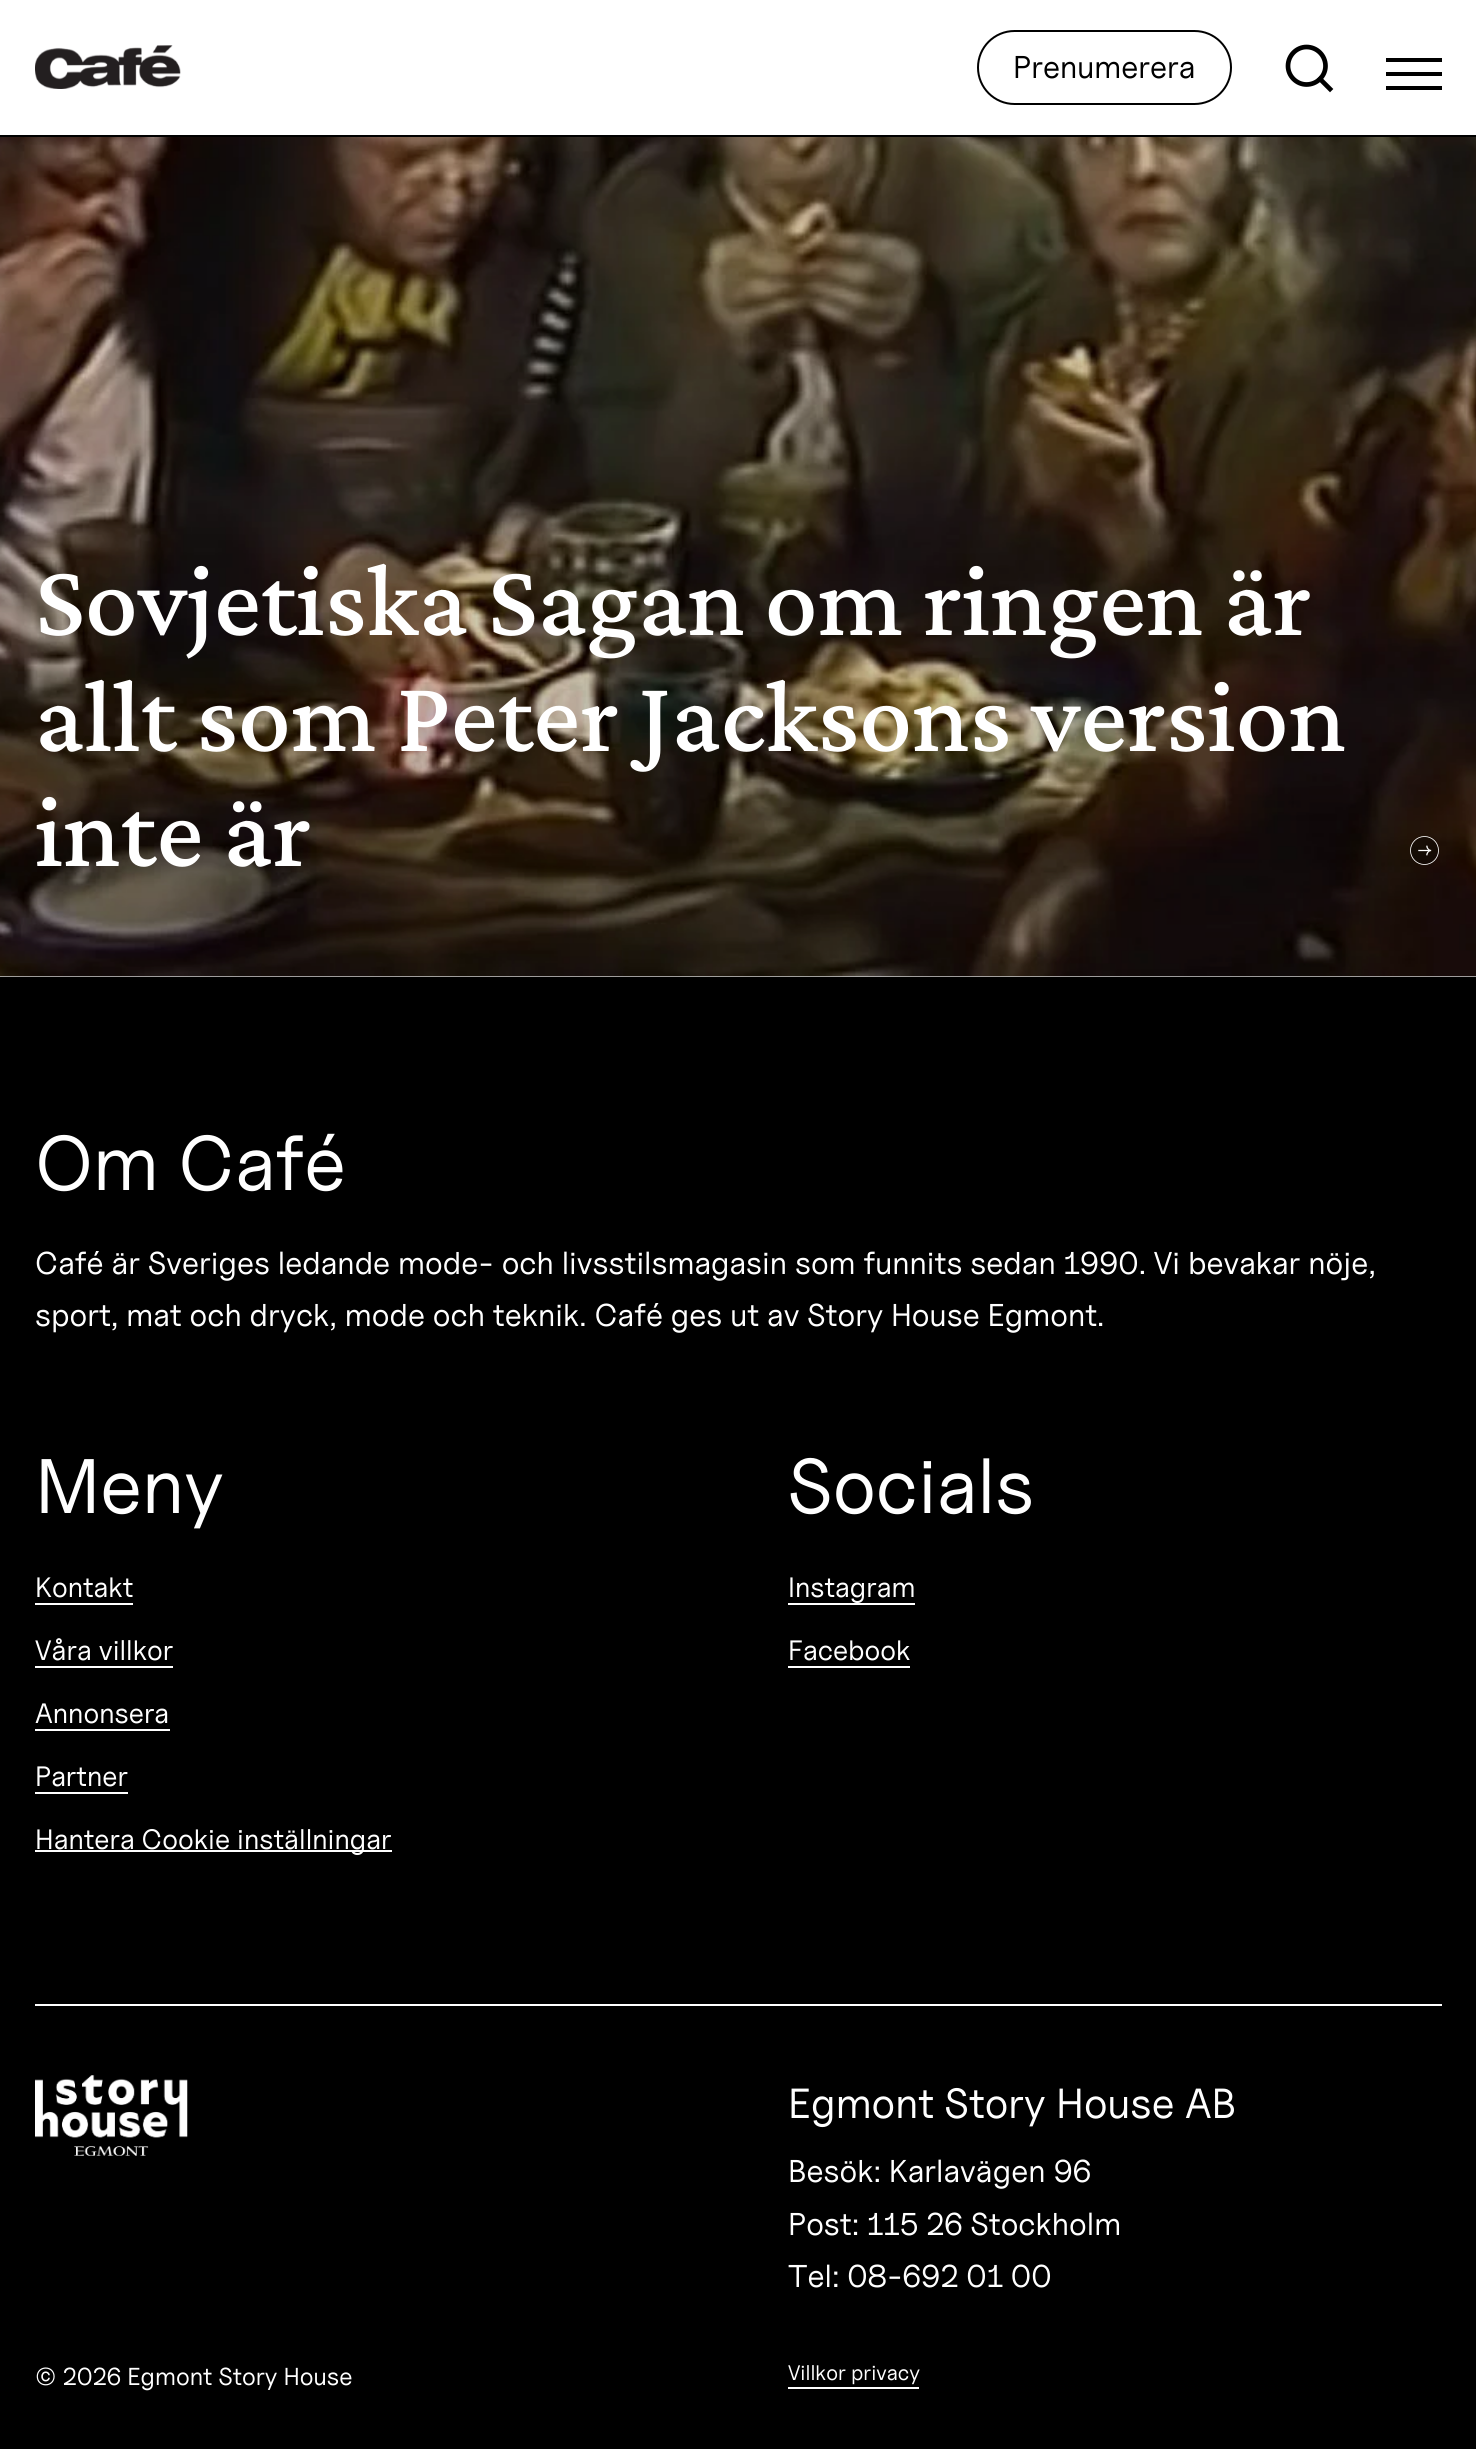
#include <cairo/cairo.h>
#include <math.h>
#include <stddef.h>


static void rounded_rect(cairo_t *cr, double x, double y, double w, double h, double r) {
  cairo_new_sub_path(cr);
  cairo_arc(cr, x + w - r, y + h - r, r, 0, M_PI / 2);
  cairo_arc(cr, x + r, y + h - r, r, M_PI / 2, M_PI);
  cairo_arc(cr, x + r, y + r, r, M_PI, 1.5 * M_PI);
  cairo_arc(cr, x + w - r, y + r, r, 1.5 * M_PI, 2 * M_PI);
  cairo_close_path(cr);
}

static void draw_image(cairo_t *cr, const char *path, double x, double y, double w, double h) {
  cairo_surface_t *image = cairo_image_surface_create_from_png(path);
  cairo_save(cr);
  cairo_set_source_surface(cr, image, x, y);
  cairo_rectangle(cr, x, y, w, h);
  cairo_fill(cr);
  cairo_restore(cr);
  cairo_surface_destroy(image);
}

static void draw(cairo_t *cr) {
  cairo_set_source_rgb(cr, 204 / 255.0, 204 / 255.0, 204 / 255.0);
  cairo_paint(cr);
  cairo_set_source_rgb(cr, 1, 1, 1);
  cairo_rectangle(cr, 0, 0, 1476, 135);
  cairo_fill(cr);
  cairo_set_source_rgb(cr, 0, 0, 0);
  cairo_rectangle(cr, 0, 135, 1476, 2);
  cairo_fill(cr);
  draw_image(cr, "images/1.png", 35, 45, 146, 44);
  rounded_rect(cr, 978, 31, 253, 73, 36.5);
  cairo_stroke(cr);
  cairo_new_path(cr);
  cairo_move_to(cr, 1306.5, 84.5);
  cairo_curve_to(cr, 1317, 84.5, 1325.5, 76, 1325.5, 66);
  cairo_curve_to(cr, 1325.5, 55.5, 1317, 47, 1306.5, 47);
  cairo_curve_to(cr, 1296.5, 47, 1288, 55.5, 1288, 66);
  cairo_curve_to(cr, 1288, 76, 1296.5, 84.5, 1306.5, 84.5);
  cairo_close_path(cr);
  cairo_set_line_width(cr, 4.7);
  cairo_set_line_cap(cr, CAIRO_LINE_CAP_ROUND);
  cairo_set_line_join(cr, CAIRO_LINE_JOIN_ROUND);
  cairo_stroke(cr);
  cairo_new_path(cr);
  cairo_move_to(cr, 1330, 89);
  cairo_line_to(cr, 1320, 79);
  cairo_set_line_cap(cr, CAIRO_LINE_CAP_SQUARE);
  cairo_stroke(cr);
  cairo_rectangle(cr, 1386, 58, 56, 4);
  cairo_fill(cr);
  cairo_rectangle(cr, 1386, 72, 56, 4);
  cairo_fill(cr);
  cairo_rectangle(cr, 1386, 86, 56, 4);
  cairo_fill(cr);
  draw_image(cr, "images/2.png", 0, 137, 1476, 840);
  draw_image(cr, "images/3.png", 1410, 836, 29, 29);
  cairo_rectangle(cr, 0, 977, 1476, 1472);
  cairo_fill(cr);
  cairo_set_source_rgb(cr, 1, 1, 1);
  cairo_rectangle(cr, 35, 1603, 98, 2);
  cairo_fill(cr);
  cairo_rectangle(cr, 35, 1666, 138, 2);
  cairo_fill(cr);
  cairo_rectangle(cr, 35, 1729, 135, 2);
  cairo_fill(cr);
  cairo_rectangle(cr, 35, 1792, 93, 2);
  cairo_fill(cr);
  cairo_rectangle(cr, 35, 1850, 357, 2);
  cairo_fill(cr);
  cairo_rectangle(cr, 788, 1603, 127, 2);
  cairo_fill(cr);
  cairo_rectangle(cr, 788, 1666, 122, 2);
  cairo_fill(cr);
  cairo_rectangle(cr, 35, 2004, 1407, 2);
  cairo_fill(cr);
  draw_image(cr, "images/4.png", 35, 2075, 153, 81);
  cairo_rectangle(cr, 788, 2387, 131, 2);
  cairo_fill(cr);
  cairo_select_font_face(cr, "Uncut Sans", CAIRO_FONT_SLANT_NORMAL, CAIRO_FONT_WEIGHT_NORMAL);
  cairo_set_font_size(cr, 31.5);
  cairo_set_source_rgb(cr, 0, 0, 0);
  cairo_move_to(cr, 1013, 78);
  cairo_show_text(cr, "Prenumerera");
  cairo_select_font_face(cr, "Crimson Pro Medium", CAIRO_FONT_SLANT_NORMAL, CAIRO_FONT_WEIGHT_NORMAL);
  cairo_set_font_size(cr, 105);
  cairo_set_source_rgb(cr, 1, 1, 1);
  cairo_move_to(cr, 35, 635);
  cairo_show_text(cr, "Sovjetiska Sagan om ringen är");
  cairo_move_to(cr, 35, 751);
  cairo_show_text(cr, "allt som Peter Jacksons version");
  cairo_move_to(cr, 35, 866);
  cairo_show_text(cr, "inte är");
  cairo_select_font_face(cr, "Uncut Sans", CAIRO_FONT_SLANT_NORMAL, CAIRO_FONT_WEIGHT_NORMAL);
  cairo_set_font_size(cr, 77);
  cairo_move_to(cr, 35, 1190);
  cairo_show_text(cr, "Om Café");
  cairo_set_font_size(cr, 31.5);
  cairo_move_to(cr, 35, 1274);
  cairo_show_text(cr, "Café är Sveriges ledande mode- och livsstilsmagasin som funnits sedan 1990. Vi bevakar nöje,");
  cairo_move_to(cr, 35, 1326);
  cairo_show_text(cr, "sport, mat och dryck, mode och teknik. Café ges ut av Story House Egmont.");
  cairo_set_font_size(cr, 77);
  cairo_move_to(cr, 35, 1513);
  cairo_show_text(cr, "Meny");
  cairo_set_font_size(cr, 28);
  cairo_move_to(cr, 35, 1597);
  cairo_show_text(cr, "Kontakt");
  cairo_move_to(cr, 35, 1660);
  cairo_show_text(cr, "Våra villkor");
  cairo_move_to(cr, 35, 1723);
  cairo_show_text(cr, "Annonsera");
  cairo_move_to(cr, 35, 1786);
  cairo_show_text(cr, "Partner");
  cairo_move_to(cr, 35, 1849);
  cairo_show_text(cr, "Hantera Cookie inställningar");
  cairo_set_font_size(cr, 77);
  cairo_move_to(cr, 788, 1513);
  cairo_show_text(cr, "Socials");
  cairo_set_font_size(cr, 28);
  cairo_move_to(cr, 788, 1597);
  cairo_show_text(cr, "Instagram");
  cairo_move_to(cr, 788, 1660);
  cairo_show_text(cr, "Facebook");
  cairo_set_font_size(cr, 42);
  cairo_move_to(cr, 788, 2118);
  cairo_show_text(cr, "Egmont Story House AB");
  cairo_set_font_size(cr, 31.5);
  cairo_move_to(cr, 788, 2182);
  cairo_show_text(cr, "Besök: Karlavägen 96");
  cairo_move_to(cr, 788, 2235);
  cairo_show_text(cr, "Post: 115 26 Stockholm");
  cairo_move_to(cr, 788, 2287);
  cairo_show_text(cr, "Tel: 08-692 01 00");
  cairo_set_font_size(cr, 24.5);
  cairo_move_to(cr, 35, 2385);
  cairo_show_text(cr, "© 2026 Egmont Story House");
  cairo_set_font_size(cr, 21);
  cairo_move_to(cr, 788, 2380);
  cairo_show_text(cr, "Villkor privacy");
}

int main(void) {
  cairo_surface_t *surface = cairo_image_surface_create(CAIRO_FORMAT_RGB24, 1476, 2449);
  cairo_t *cr = cairo_create(surface);
  cairo_font_options_t *options = cairo_font_options_create();
  cairo_font_options_set_hint_metrics(options, CAIRO_HINT_METRICS_OFF);
  cairo_font_options_set_hint_style(options, CAIRO_HINT_STYLE_NONE);
  cairo_set_font_options(cr, options);
  cairo_set_miter_limit(cr, 4);
  draw(cr);
  cairo_surface_write_to_png(surface, "out.png");
  cairo_font_options_destroy(options);
  cairo_destroy(cr);
  cairo_surface_destroy(surface);
  return 0;
}
